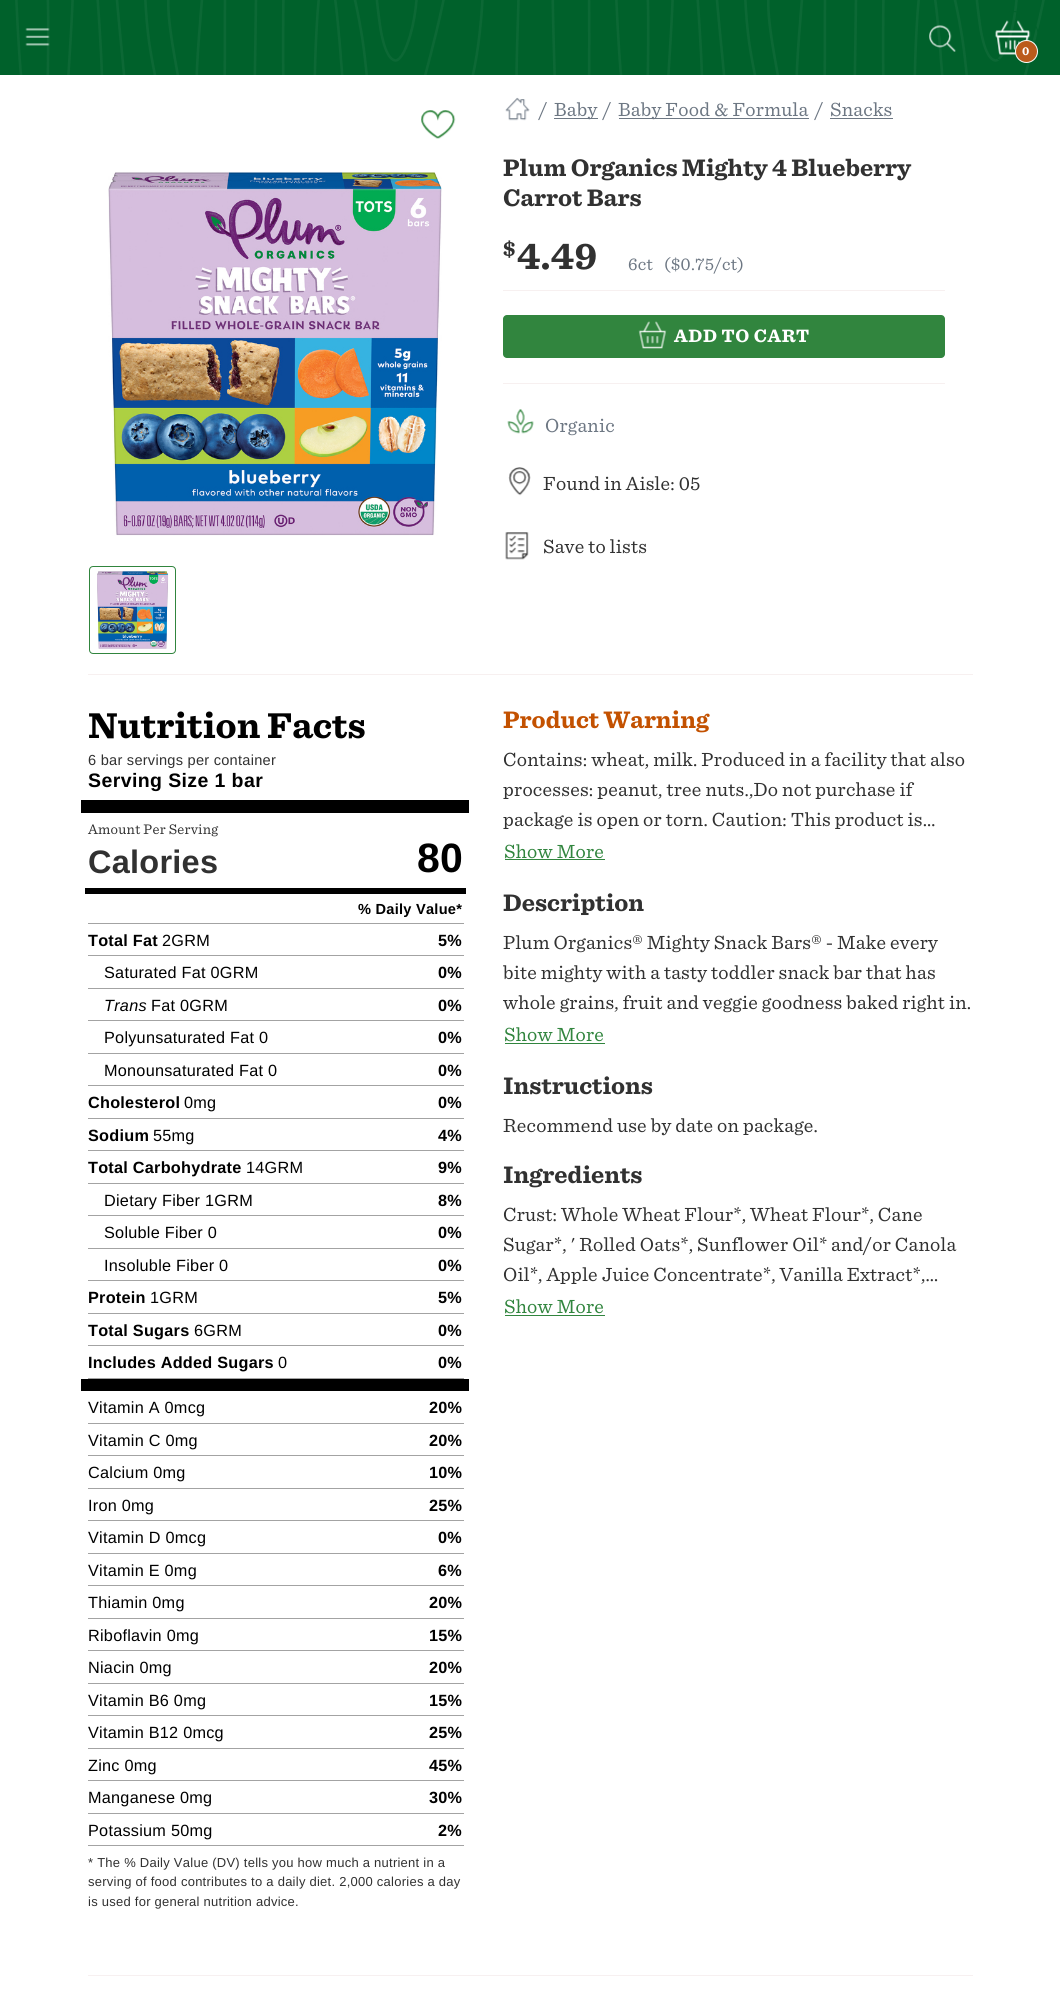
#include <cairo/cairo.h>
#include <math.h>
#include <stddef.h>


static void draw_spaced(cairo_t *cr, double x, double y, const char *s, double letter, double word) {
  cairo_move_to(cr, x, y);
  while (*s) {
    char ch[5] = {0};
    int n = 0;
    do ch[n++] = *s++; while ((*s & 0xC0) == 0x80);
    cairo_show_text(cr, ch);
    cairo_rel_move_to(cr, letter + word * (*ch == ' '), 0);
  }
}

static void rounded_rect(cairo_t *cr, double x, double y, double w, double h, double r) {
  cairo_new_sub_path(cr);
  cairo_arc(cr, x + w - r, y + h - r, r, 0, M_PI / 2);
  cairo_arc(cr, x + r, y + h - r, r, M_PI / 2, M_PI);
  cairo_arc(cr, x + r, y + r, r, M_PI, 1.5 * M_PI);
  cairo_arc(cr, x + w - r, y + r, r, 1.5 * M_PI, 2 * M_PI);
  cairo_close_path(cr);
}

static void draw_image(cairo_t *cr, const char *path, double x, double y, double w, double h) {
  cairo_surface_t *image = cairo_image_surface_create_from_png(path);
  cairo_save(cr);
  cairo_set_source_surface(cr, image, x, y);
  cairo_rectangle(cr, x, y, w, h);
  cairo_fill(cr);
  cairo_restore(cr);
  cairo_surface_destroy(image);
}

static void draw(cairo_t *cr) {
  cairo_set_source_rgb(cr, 1, 1, 1);
  cairo_paint(cr);
  cairo_set_source_rgb(cr, 0, 97 / 255.0, 43 / 255.0);
  cairo_rectangle(cr, 0, 0, 1060, 75);
  cairo_fill(cr);
  draw_image(cr, "images/1.png", 15, 0, 1030, 75);
  draw_image(cr, "images/2.png", 25, 28, 25, 18);
  draw_image(cr, "images/3.png", 929, 25, 27, 27);
  cairo_arc(cr, 1012.5, 37.5, 26, 0, 2 * M_PI);
  cairo_set_line_width(cr, 1);
  cairo_stroke(cr);
  draw_image(cr, "images/4.png", 995, 20, 36, 35);
  cairo_set_source_rgb(cr, 187 / 255.0, 91 / 255.0, 27 / 255.0);
  cairo_arc(cr, 1026.5, 51.5, 11, 0, 2 * M_PI);
  cairo_fill_preserve(cr);
  cairo_set_source_rgb(cr, 1, 1, 1);
  cairo_stroke(cr);
  draw_image(cr, "images/5.png", 421, 110, 35, 29);
  draw_image(cr, "images/6.png", 108, 172, 334, 364);
  rounded_rect(cr, 89.5, 566.5, 86, 87, 3.5);
  cairo_set_source_rgb(cr, 49 / 255.0, 133 / 255.0, 62 / 255.0);
  cairo_stroke(cr);
  draw_image(cr, "images/7.png", 97, 571, 72, 78);
  draw_image(cr, "images/8.png", 505, 97, 25, 24);
  cairo_set_source_rgb(cr, 109 / 255.0, 119 / 255.0, 131 / 255.0);
  cairo_rectangle(cr, 554, 118, 44, 1);
  cairo_fill(cr);
  cairo_rectangle(cr, 619, 118, 190, 1);
  cairo_fill(cr);
  cairo_rectangle(cr, 830, 118, 63, 1);
  cairo_fill(cr);
  cairo_set_source_rgb(cr, 247 / 255.0, 240 / 255.0, 240 / 255.0);
  cairo_rectangle(cr, 503, 290, 442, 1);
  cairo_fill(cr);
  cairo_rectangle(cr, 503, 383, 442, 1);
  cairo_fill(cr);
  cairo_set_source_rgb(cr, 49 / 255.0, 133 / 255.0, 62 / 255.0);
  rounded_rect(cr, 503, 315, 442, 43, 4);
  cairo_fill(cr);
  draw_image(cr, "images/9.png", 638, 321, 29, 28);
  draw_image(cr, "images/10.png", 507, 409, 27, 25);
  draw_image(cr, "images/11.png", 508, 467, 23, 29);
  draw_image(cr, "images/12.png", 505, 532, 24, 28);
  cairo_set_source_rgb(cr, 247 / 255.0, 240 / 255.0, 240 / 255.0);
  cairo_rectangle(cr, 88, 674, 885, 1);
  cairo_fill(cr);
  cairo_set_source_rgb(cr, 0, 0, 0);
  cairo_rectangle(cr, 81, 800, 388, 13);
  cairo_fill(cr);
  cairo_rectangle(cr, 85, 888, 381, 6);
  cairo_fill(cr);
  cairo_set_source_rgb(cr, 163 / 255.0, 163 / 255.0, 163 / 255.0);
  cairo_rectangle(cr, 88, 923, 376, 1);
  cairo_fill(cr);
  cairo_rectangle(cr, 88, 955, 376, 1);
  cairo_fill(cr);
  cairo_rectangle(cr, 88, 988, 376, 1);
  cairo_fill(cr);
  cairo_rectangle(cr, 88, 1020, 376, 1);
  cairo_fill(cr);
  cairo_rectangle(cr, 88, 1053, 376, 1);
  cairo_fill(cr);
  cairo_rectangle(cr, 88, 1085, 376, 1);
  cairo_fill(cr);
  cairo_rectangle(cr, 88, 1118, 376, 1);
  cairo_fill(cr);
  cairo_rectangle(cr, 88, 1150, 376, 1);
  cairo_fill(cr);
  cairo_rectangle(cr, 88, 1183, 376, 1);
  cairo_fill(cr);
  cairo_rectangle(cr, 88, 1215, 376, 1);
  cairo_fill(cr);
  cairo_rectangle(cr, 88, 1248, 376, 1);
  cairo_fill(cr);
  cairo_rectangle(cr, 88, 1280, 376, 1);
  cairo_fill(cr);
  cairo_rectangle(cr, 88, 1313, 376, 1);
  cairo_fill(cr);
  cairo_rectangle(cr, 88, 1345, 376, 1);
  cairo_fill(cr);
  cairo_rectangle(cr, 88, 1378, 376, 1);
  cairo_fill(cr);
  cairo_set_source_rgb(cr, 0, 0, 0);
  cairo_rectangle(cr, 81, 1379, 388, 12);
  cairo_fill(cr);
  cairo_set_source_rgb(cr, 163 / 255.0, 163 / 255.0, 163 / 255.0);
  cairo_rectangle(cr, 88, 1423, 376, 1);
  cairo_fill(cr);
  cairo_rectangle(cr, 88, 1455, 376, 1);
  cairo_fill(cr);
  cairo_rectangle(cr, 88, 1488, 376, 1);
  cairo_fill(cr);
  cairo_rectangle(cr, 88, 1520, 376, 1);
  cairo_fill(cr);
  cairo_rectangle(cr, 88, 1553, 376, 1);
  cairo_fill(cr);
  cairo_rectangle(cr, 88, 1585, 376, 1);
  cairo_fill(cr);
  cairo_rectangle(cr, 88, 1618, 376, 1);
  cairo_fill(cr);
  cairo_rectangle(cr, 88, 1650, 376, 1);
  cairo_fill(cr);
  cairo_rectangle(cr, 88, 1683, 376, 1);
  cairo_fill(cr);
  cairo_rectangle(cr, 88, 1715, 376, 1);
  cairo_fill(cr);
  cairo_rectangle(cr, 88, 1748, 376, 1);
  cairo_fill(cr);
  cairo_rectangle(cr, 88, 1780, 376, 1);
  cairo_fill(cr);
  cairo_rectangle(cr, 88, 1813, 376, 1);
  cairo_fill(cr);
  cairo_rectangle(cr, 88, 1845, 376, 1);
  cairo_fill(cr);
  cairo_set_source_rgb(cr, 49 / 255.0, 133 / 255.0, 62 / 255.0);
  cairo_rectangle(cr, 505, 859, 100, 1);
  cairo_fill(cr);
  cairo_rectangle(cr, 505, 1043, 100, 1);
  cairo_fill(cr);
  cairo_rectangle(cr, 505, 1315, 100, 1);
  cairo_fill(cr);
  cairo_set_source_rgb(cr, 247 / 255.0, 240 / 255.0, 240 / 255.0);
  cairo_rectangle(cr, 88, 1975, 885, 1);
  cairo_fill(cr);
  cairo_select_font_face(cr, "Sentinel", CAIRO_FONT_SLANT_NORMAL, CAIRO_FONT_WEIGHT_BOLD);
  cairo_set_font_size(cr, 12);
  cairo_set_source_rgb(cr, 1, 1, 1);
  cairo_move_to(cr, 1022, 55);
  cairo_show_text(cr, "0");
  cairo_select_font_face(cr, "Sentinel", CAIRO_FONT_SLANT_NORMAL, CAIRO_FONT_WEIGHT_NORMAL);
  cairo_set_font_size(cr, 20);
  cairo_set_source_rgb(cr, 109 / 255.0, 119 / 255.0, 131 / 255.0);
  draw_spaced(cr, 539, 116, "/", 0.25, 0);
  draw_spaced(cr, 554, 116, "Baby", 0.25, 0);
  draw_spaced(cr, 603, 116, "/", 0.25, 0);
  draw_spaced(cr, 618, 116, "Baby Food & Formula", 0.25, 0);
  draw_spaced(cr, 815, 116, "/", 0.25, 0);
  draw_spaced(cr, 830, 116, "Snacks", 0.25, 0);
  cairo_select_font_face(cr, "Sentinel", CAIRO_FONT_SLANT_NORMAL, CAIRO_FONT_WEIGHT_BOLD);
  cairo_set_font_size(cr, 25);
  cairo_set_source_rgb(cr, 49 / 255.0, 49 / 255.0, 49 / 255.0);
  cairo_move_to(cr, 503, 176);
  cairo_show_text(cr, "Plum Organics Mighty 4 Blueberry");
  cairo_move_to(cr, 503, 206);
  cairo_show_text(cr, "Carrot Bars");
  cairo_set_font_size(cr, 22);
  draw_spaced(cr, 503, 256, "$", 0.25, 0);
  cairo_set_font_size(cr, 39);
  draw_spaced(cr, 517, 269, "4.49", 0.25, 0);
  cairo_select_font_face(cr, "Sentinel", CAIRO_FONT_SLANT_NORMAL, CAIRO_FONT_WEIGHT_NORMAL);
  cairo_set_font_size(cr, 18);
  cairo_set_source_rgb(cr, 109 / 255.0, 119 / 255.0, 131 / 255.0);
  draw_spaced(cr, 628, 270, "6ct", 0.25, 0);
  draw_spaced(cr, 664, 270, "($0.75/ct)", 0.25, 0);
  cairo_select_font_face(cr, "Sentinel", CAIRO_FONT_SLANT_NORMAL, CAIRO_FONT_WEIGHT_BOLD);
  cairo_set_font_size(cr, 18.75);
  cairo_set_source_rgb(cr, 1, 1, 1);
  draw_spaced(cr, 674, 342, "ADD TO CART", 0.6, 0);
  cairo_select_font_face(cr, "Sentinel", CAIRO_FONT_SLANT_NORMAL, CAIRO_FONT_WEIGHT_NORMAL);
  cairo_set_font_size(cr, 20);
  cairo_set_source_rgb(cr, 109 / 255.0, 119 / 255.0, 131 / 255.0);
  draw_spaced(cr, 545, 432, "Organic", 0.25, 0);
  cairo_set_source_rgb(cr, 49 / 255.0, 49 / 255.0, 49 / 255.0);
  draw_spaced(cr, 543, 490, "Found in Aisle: 05", 0.25, 0);
  draw_spaced(cr, 543, 553, "Save to lists", 0.25, 0);
  cairo_select_font_face(cr, "Sentinel", CAIRO_FONT_SLANT_NORMAL, CAIRO_FONT_WEIGHT_BOLD);
  cairo_set_font_size(cr, 37.5);
  cairo_set_source_rgb(cr, 0, 0, 0);
  cairo_move_to(cr, 88, 738);
  cairo_show_text(cr, "Nutrition Facts");
  cairo_select_font_face(cr, "Liberation Sans", CAIRO_FONT_SLANT_NORMAL, CAIRO_FONT_WEIGHT_NORMAL);
  cairo_set_font_size(cr, 14.6);
  cairo_set_source_rgb(cr, 49 / 255.0, 49 / 255.0, 49 / 255.0);
  draw_spaced(cr, 88, 765, "6 bar servings per container", 0.25, 0);
  cairo_select_font_face(cr, "Liberation Sans", CAIRO_FONT_SLANT_NORMAL, CAIRO_FONT_WEIGHT_BOLD);
  cairo_set_font_size(cr, 19.5);
  cairo_set_source_rgb(cr, 0, 0, 0);
  draw_spaced(cr, 88, 787, "Serving Size 1 bar", 0.4, 0);
  cairo_select_font_face(cr, "Sentinel", CAIRO_FONT_SLANT_NORMAL, CAIRO_FONT_WEIGHT_NORMAL);
  cairo_set_font_size(cr, 14.6);
  cairo_set_source_rgb(cr, 49 / 255.0, 49 / 255.0, 49 / 255.0);
  draw_spaced(cr, 88, 834, "Amount Per Serving", 0.25, 0);
  cairo_select_font_face(cr, "Liberation Sans", CAIRO_FONT_SLANT_NORMAL, CAIRO_FONT_WEIGHT_BOLD);
  cairo_set_font_size(cr, 32.5);
  draw_spaced(cr, 88, 873, "Calories", 0.25, 0);
  cairo_set_font_size(cr, 41);
  cairo_set_source_rgb(cr, 0, 0, 0);
  draw_spaced(cr, 417, 872, "80", 0.25, 0);
  cairo_set_font_size(cr, 14.6);
  draw_spaced(cr, 358, 914, "% Daily Value*", 0.25, 0);
  cairo_set_font_size(cr, 16.25);
  draw_spaced(cr, 88, 946, "Total Fat", 0.25, 0);
  cairo_select_font_face(cr, "Liberation Sans", CAIRO_FONT_SLANT_NORMAL, CAIRO_FONT_WEIGHT_NORMAL);
  draw_spaced(cr, 162, 946, "2GRM", 0.25, 0);
  cairo_select_font_face(cr, "Liberation Sans", CAIRO_FONT_SLANT_NORMAL, CAIRO_FONT_WEIGHT_BOLD);
  draw_spaced(cr, 438, 946, "5%", 0.25, 0);
  cairo_select_font_face(cr, "Liberation Sans", CAIRO_FONT_SLANT_NORMAL, CAIRO_FONT_WEIGHT_NORMAL);
  draw_spaced(cr, 104, 978, "Saturated Fat 0GRM", 0.25, 0);
  cairo_select_font_face(cr, "Liberation Sans", CAIRO_FONT_SLANT_NORMAL, CAIRO_FONT_WEIGHT_BOLD);
  draw_spaced(cr, 438, 978, "0%", 0.25, 0);
  cairo_select_font_face(cr, "Liberation Sans", CAIRO_FONT_SLANT_ITALIC, CAIRO_FONT_WEIGHT_NORMAL);
  draw_spaced(cr, 104, 1011, "Trans", 0.25, 0);
  cairo_select_font_face(cr, "Liberation Sans", CAIRO_FONT_SLANT_NORMAL, CAIRO_FONT_WEIGHT_NORMAL);
  draw_spaced(cr, 151, 1011, "Fat 0GRM", 0.25, 0);
  cairo_select_font_face(cr, "Liberation Sans", CAIRO_FONT_SLANT_NORMAL, CAIRO_FONT_WEIGHT_BOLD);
  draw_spaced(cr, 438, 1011, "0%", 0.25, 0);
  cairo_select_font_face(cr, "Liberation Sans", CAIRO_FONT_SLANT_NORMAL, CAIRO_FONT_WEIGHT_NORMAL);
  draw_spaced(cr, 104, 1043, "Polyunsaturated Fat 0", 0.25, 0);
  cairo_select_font_face(cr, "Liberation Sans", CAIRO_FONT_SLANT_NORMAL, CAIRO_FONT_WEIGHT_BOLD);
  draw_spaced(cr, 438, 1043, "0%", 0.25, 0);
  cairo_select_font_face(cr, "Liberation Sans", CAIRO_FONT_SLANT_NORMAL, CAIRO_FONT_WEIGHT_NORMAL);
  draw_spaced(cr, 104, 1076, "Monounsaturated Fat 0", 0.25, 0);
  cairo_select_font_face(cr, "Liberation Sans", CAIRO_FONT_SLANT_NORMAL, CAIRO_FONT_WEIGHT_BOLD);
  draw_spaced(cr, 438, 1076, "0%", 0.25, 0);
  draw_spaced(cr, 88, 1108, "Cholesterol", 0.25, 0);
  cairo_select_font_face(cr, "Liberation Sans", CAIRO_FONT_SLANT_NORMAL, CAIRO_FONT_WEIGHT_NORMAL);
  draw_spaced(cr, 184, 1108, "0mg", 0.25, 0);
  cairo_select_font_face(cr, "Liberation Sans", CAIRO_FONT_SLANT_NORMAL, CAIRO_FONT_WEIGHT_BOLD);
  draw_spaced(cr, 438, 1108, "0%", 0.25, 0);
  draw_spaced(cr, 88, 1141, "Sodium", 0.25, 0);
  cairo_select_font_face(cr, "Liberation Sans", CAIRO_FONT_SLANT_NORMAL, CAIRO_FONT_WEIGHT_NORMAL);
  draw_spaced(cr, 153, 1141, "55mg", 0.25, 0);
  cairo_select_font_face(cr, "Liberation Sans", CAIRO_FONT_SLANT_NORMAL, CAIRO_FONT_WEIGHT_BOLD);
  draw_spaced(cr, 438, 1141, "4%", 0.25, 0);
  draw_spaced(cr, 88, 1173, "Total Carbohydrate", 0.25, 0);
  cairo_select_font_face(cr, "Liberation Sans", CAIRO_FONT_SLANT_NORMAL, CAIRO_FONT_WEIGHT_NORMAL);
  draw_spaced(cr, 246, 1173, "14GRM", 0.25, 0);
  cairo_select_font_face(cr, "Liberation Sans", CAIRO_FONT_SLANT_NORMAL, CAIRO_FONT_WEIGHT_BOLD);
  draw_spaced(cr, 438, 1173, "9%", 0.25, 0);
  cairo_select_font_face(cr, "Liberation Sans", CAIRO_FONT_SLANT_NORMAL, CAIRO_FONT_WEIGHT_NORMAL);
  draw_spaced(cr, 104, 1206, "Dietary Fiber 1GRM", 0.25, 0);
  cairo_select_font_face(cr, "Liberation Sans", CAIRO_FONT_SLANT_NORMAL, CAIRO_FONT_WEIGHT_BOLD);
  draw_spaced(cr, 438, 1206, "8%", 0.25, 0);
  cairo_select_font_face(cr, "Liberation Sans", CAIRO_FONT_SLANT_NORMAL, CAIRO_FONT_WEIGHT_NORMAL);
  draw_spaced(cr, 104, 1238, "Soluble Fiber 0", 0.25, 0);
  cairo_select_font_face(cr, "Liberation Sans", CAIRO_FONT_SLANT_NORMAL, CAIRO_FONT_WEIGHT_BOLD);
  draw_spaced(cr, 438, 1238, "0%", 0.25, 0);
  cairo_select_font_face(cr, "Liberation Sans", CAIRO_FONT_SLANT_NORMAL, CAIRO_FONT_WEIGHT_NORMAL);
  draw_spaced(cr, 104, 1271, "Insoluble Fiber 0", 0.25, 0);
  cairo_select_font_face(cr, "Liberation Sans", CAIRO_FONT_SLANT_NORMAL, CAIRO_FONT_WEIGHT_BOLD);
  draw_spaced(cr, 438, 1271, "0%", 0.25, 0);
  draw_spaced(cr, 88, 1303, "Protein", 0.25, 0);
  cairo_select_font_face(cr, "Liberation Sans", CAIRO_FONT_SLANT_NORMAL, CAIRO_FONT_WEIGHT_NORMAL);
  draw_spaced(cr, 150, 1303, "1GRM", 0.25, 0);
  cairo_select_font_face(cr, "Liberation Sans", CAIRO_FONT_SLANT_NORMAL, CAIRO_FONT_WEIGHT_BOLD);
  draw_spaced(cr, 438, 1303, "5%", 0.25, 0);
  draw_spaced(cr, 88, 1336, "Total Sugars", 0.25, 0);
  cairo_select_font_face(cr, "Liberation Sans", CAIRO_FONT_SLANT_NORMAL, CAIRO_FONT_WEIGHT_NORMAL);
  draw_spaced(cr, 194, 1336, "6GRM", 0.25, 0);
  cairo_select_font_face(cr, "Liberation Sans", CAIRO_FONT_SLANT_NORMAL, CAIRO_FONT_WEIGHT_BOLD);
  draw_spaced(cr, 438, 1336, "0%", 0.25, 0);
  draw_spaced(cr, 88, 1368, "Includes Added Sugars", 0.25, 0);
  cairo_select_font_face(cr, "Liberation Sans", CAIRO_FONT_SLANT_NORMAL, CAIRO_FONT_WEIGHT_NORMAL);
  draw_spaced(cr, 278, 1368, "0", 0.25, 0);
  cairo_select_font_face(cr, "Liberation Sans", CAIRO_FONT_SLANT_NORMAL, CAIRO_FONT_WEIGHT_BOLD);
  draw_spaced(cr, 438, 1368, "0%", 0.25, 0);
  cairo_select_font_face(cr, "Liberation Sans", CAIRO_FONT_SLANT_NORMAL, CAIRO_FONT_WEIGHT_NORMAL);
  draw_spaced(cr, 88, 1413, "Vitamin A 0mcg", 0.25, 0);
  cairo_select_font_face(cr, "Liberation Sans", CAIRO_FONT_SLANT_NORMAL, CAIRO_FONT_WEIGHT_BOLD);
  draw_spaced(cr, 429, 1413, "20%", 0.25, 0);
  cairo_select_font_face(cr, "Liberation Sans", CAIRO_FONT_SLANT_NORMAL, CAIRO_FONT_WEIGHT_NORMAL);
  draw_spaced(cr, 88, 1446, "Vitamin C 0mg", 0.25, 0);
  cairo_select_font_face(cr, "Liberation Sans", CAIRO_FONT_SLANT_NORMAL, CAIRO_FONT_WEIGHT_BOLD);
  draw_spaced(cr, 429, 1446, "20%", 0.25, 0);
  cairo_select_font_face(cr, "Liberation Sans", CAIRO_FONT_SLANT_NORMAL, CAIRO_FONT_WEIGHT_NORMAL);
  draw_spaced(cr, 88, 1478, "Calcium 0mg", 0.25, 0);
  cairo_select_font_face(cr, "Liberation Sans", CAIRO_FONT_SLANT_NORMAL, CAIRO_FONT_WEIGHT_BOLD);
  draw_spaced(cr, 429, 1478, "10%", 0.25, 0);
  cairo_select_font_face(cr, "Liberation Sans", CAIRO_FONT_SLANT_NORMAL, CAIRO_FONT_WEIGHT_NORMAL);
  draw_spaced(cr, 88, 1511, "Iron 0mg", 0.25, 0);
  cairo_select_font_face(cr, "Liberation Sans", CAIRO_FONT_SLANT_NORMAL, CAIRO_FONT_WEIGHT_BOLD);
  draw_spaced(cr, 429, 1511, "25%", 0.25, 0);
  cairo_select_font_face(cr, "Liberation Sans", CAIRO_FONT_SLANT_NORMAL, CAIRO_FONT_WEIGHT_NORMAL);
  draw_spaced(cr, 88, 1543, "Vitamin D 0mcg", 0.25, 0);
  cairo_select_font_face(cr, "Liberation Sans", CAIRO_FONT_SLANT_NORMAL, CAIRO_FONT_WEIGHT_BOLD);
  draw_spaced(cr, 438, 1543, "0%", 0.25, 0);
  cairo_select_font_face(cr, "Liberation Sans", CAIRO_FONT_SLANT_NORMAL, CAIRO_FONT_WEIGHT_NORMAL);
  draw_spaced(cr, 88, 1576, "Vitamin E 0mg", 0.25, 0);
  cairo_select_font_face(cr, "Liberation Sans", CAIRO_FONT_SLANT_NORMAL, CAIRO_FONT_WEIGHT_BOLD);
  draw_spaced(cr, 438, 1576, "6%", 0.25, 0);
  cairo_select_font_face(cr, "Liberation Sans", CAIRO_FONT_SLANT_NORMAL, CAIRO_FONT_WEIGHT_NORMAL);
  draw_spaced(cr, 88, 1608, "Thiamin 0mg", 0.25, 0);
  cairo_select_font_face(cr, "Liberation Sans", CAIRO_FONT_SLANT_NORMAL, CAIRO_FONT_WEIGHT_BOLD);
  draw_spaced(cr, 429, 1608, "20%", 0.25, 0);
  cairo_select_font_face(cr, "Liberation Sans", CAIRO_FONT_SLANT_NORMAL, CAIRO_FONT_WEIGHT_NORMAL);
  draw_spaced(cr, 88, 1641, "Riboflavin 0mg", 0.25, 0);
  cairo_select_font_face(cr, "Liberation Sans", CAIRO_FONT_SLANT_NORMAL, CAIRO_FONT_WEIGHT_BOLD);
  draw_spaced(cr, 429, 1641, "15%", 0.25, 0);
  cairo_select_font_face(cr, "Liberation Sans", CAIRO_FONT_SLANT_NORMAL, CAIRO_FONT_WEIGHT_NORMAL);
  draw_spaced(cr, 88, 1673, "Niacin 0mg", 0.25, 0);
  cairo_select_font_face(cr, "Liberation Sans", CAIRO_FONT_SLANT_NORMAL, CAIRO_FONT_WEIGHT_BOLD);
  draw_spaced(cr, 429, 1673, "20%", 0.25, 0);
  cairo_select_font_face(cr, "Liberation Sans", CAIRO_FONT_SLANT_NORMAL, CAIRO_FONT_WEIGHT_NORMAL);
  draw_spaced(cr, 88, 1706, "Vitamin B6 0mg", 0.25, 0);
  cairo_select_font_face(cr, "Liberation Sans", CAIRO_FONT_SLANT_NORMAL, CAIRO_FONT_WEIGHT_BOLD);
  draw_spaced(cr, 429, 1706, "15%", 0.25, 0);
  cairo_select_font_face(cr, "Liberation Sans", CAIRO_FONT_SLANT_NORMAL, CAIRO_FONT_WEIGHT_NORMAL);
  draw_spaced(cr, 88, 1738, "Vitamin B12 0mcg", 0.25, 0);
  cairo_select_font_face(cr, "Liberation Sans", CAIRO_FONT_SLANT_NORMAL, CAIRO_FONT_WEIGHT_BOLD);
  draw_spaced(cr, 429, 1738, "25%", 0.25, 0);
  cairo_select_font_face(cr, "Liberation Sans", CAIRO_FONT_SLANT_NORMAL, CAIRO_FONT_WEIGHT_NORMAL);
  draw_spaced(cr, 88, 1771, "Zinc 0mg", 0.25, 0);
  cairo_select_font_face(cr, "Liberation Sans", CAIRO_FONT_SLANT_NORMAL, CAIRO_FONT_WEIGHT_BOLD);
  draw_spaced(cr, 429, 1771, "45%", 0.25, 0);
  cairo_select_font_face(cr, "Liberation Sans", CAIRO_FONT_SLANT_NORMAL, CAIRO_FONT_WEIGHT_NORMAL);
  draw_spaced(cr, 88, 1803, "Manganese 0mg", 0.25, 0);
  cairo_select_font_face(cr, "Liberation Sans", CAIRO_FONT_SLANT_NORMAL, CAIRO_FONT_WEIGHT_BOLD);
  draw_spaced(cr, 429, 1803, "30%", 0.25, 0);
  cairo_select_font_face(cr, "Liberation Sans", CAIRO_FONT_SLANT_NORMAL, CAIRO_FONT_WEIGHT_NORMAL);
  draw_spaced(cr, 88, 1836, "Potassium 50mg", 0.25, 0);
  cairo_select_font_face(cr, "Liberation Sans", CAIRO_FONT_SLANT_NORMAL, CAIRO_FONT_WEIGHT_BOLD);
  draw_spaced(cr, 438, 1836, "2%", 0.25, 0);
  cairo_select_font_face(cr, "Liberation Sans", CAIRO_FONT_SLANT_NORMAL, CAIRO_FONT_WEIGHT_NORMAL);
  cairo_set_font_size(cr, 13);
  cairo_set_source_rgb(cr, 49 / 255.0, 49 / 255.0, 49 / 255.0);
  draw_spaced(cr, 88, 1867, "* The % Daily Value (DV) tells you how much a nutrient in a", 0.25, 0);
  draw_spaced(cr, 88, 1886, "serving of food contributes to a daily diet. 2,000 calories a day", 0.25, 0);
  draw_spaced(cr, 88, 1906, "is used for general nutrition advice.", 0.25, 0);
  cairo_select_font_face(cr, "Sentinel", CAIRO_FONT_SLANT_NORMAL, CAIRO_FONT_WEIGHT_BOLD);
  cairo_set_font_size(cr, 25);
  cairo_set_source_rgb(cr, 195 / 255.0, 81 / 255.0, 0);
  cairo_move_to(cr, 503, 728);
  cairo_show_text(cr, "Product Warning");
  cairo_select_font_face(cr, "Sentinel", CAIRO_FONT_SLANT_NORMAL, CAIRO_FONT_WEIGHT_NORMAL);
  cairo_set_font_size(cr, 20);
  cairo_set_source_rgb(cr, 49 / 255.0, 49 / 255.0, 49 / 255.0);
  draw_spaced(cr, 503, 766, "Contains: wheat, milk. Produced in a facility that also", 0.25, 0);
  draw_spaced(cr, 503, 796, "processes: peanut, tree nuts.,Do not purchase if", 0.25, 0);
  draw_spaced(cr, 503, 826, "package is open or torn. Caution: This product is…", 0.25, 0);
  cairo_set_source_rgb(cr, 49 / 255.0, 133 / 255.0, 62 / 255.0);
  draw_spaced(cr, 504, 858, "Show More", 0.25, 0);
  cairo_select_font_face(cr, "Sentinel", CAIRO_FONT_SLANT_NORMAL, CAIRO_FONT_WEIGHT_BOLD);
  cairo_set_font_size(cr, 25);
  cairo_set_source_rgb(cr, 49 / 255.0, 49 / 255.0, 49 / 255.0);
  cairo_move_to(cr, 503, 911);
  cairo_show_text(cr, "Description");
  cairo_select_font_face(cr, "Sentinel", CAIRO_FONT_SLANT_NORMAL, CAIRO_FONT_WEIGHT_NORMAL);
  cairo_set_font_size(cr, 20);
  draw_spaced(cr, 503, 949, "Plum Organics® Mighty Snack Bars® - Make every", 0.25, 0);
  draw_spaced(cr, 503, 979, "bite mighty with a tasty toddler snack bar that has", 0.25, 0);
  draw_spaced(cr, 503, 1009, "whole grains, fruit and veggie goodness baked right in.", 0.25, 0);
  cairo_set_source_rgb(cr, 49 / 255.0, 133 / 255.0, 62 / 255.0);
  draw_spaced(cr, 504, 1041, "Show More", 0.25, 0);
  cairo_select_font_face(cr, "Sentinel", CAIRO_FONT_SLANT_NORMAL, CAIRO_FONT_WEIGHT_BOLD);
  cairo_set_font_size(cr, 25);
  cairo_set_source_rgb(cr, 49 / 255.0, 49 / 255.0, 49 / 255.0);
  cairo_move_to(cr, 503, 1094);
  cairo_show_text(cr, "Instructions");
  cairo_select_font_face(cr, "Sentinel", CAIRO_FONT_SLANT_NORMAL, CAIRO_FONT_WEIGHT_NORMAL);
  cairo_set_font_size(cr, 20);
  draw_spaced(cr, 503, 1132, "Recommend use by date on package.", 0.25, 0);
  cairo_select_font_face(cr, "Sentinel", CAIRO_FONT_SLANT_NORMAL, CAIRO_FONT_WEIGHT_BOLD);
  cairo_set_font_size(cr, 25);
  cairo_move_to(cr, 503, 1183);
  cairo_show_text(cr, "Ingredients");
  cairo_select_font_face(cr, "Sentinel", CAIRO_FONT_SLANT_NORMAL, CAIRO_FONT_WEIGHT_NORMAL);
  cairo_set_font_size(cr, 20);
  draw_spaced(cr, 503, 1221, "Crust: Whole Wheat Flour*, Wheat Flour*, Cane", 0.25, 0);
  draw_spaced(cr, 503, 1251, "Sugar*, ' Rolled Oats*, Sunflower Oil* and/or Canola", 0.25, 0);
  draw_spaced(cr, 503, 1281, "Oil*, Apple Juice Concentrate*, Vanilla Extract*,…", 0.25, 0);
  cairo_set_source_rgb(cr, 49 / 255.0, 133 / 255.0, 62 / 255.0);
  draw_spaced(cr, 504, 1313, "Show More", 0.25, 0);
}

int main(void) {
  cairo_surface_t *surface = cairo_image_surface_create(CAIRO_FORMAT_RGB24, 1060, 2001);
  cairo_t *cr = cairo_create(surface);
  cairo_font_options_t *options = cairo_font_options_create();
  cairo_font_options_set_hint_metrics(options, CAIRO_HINT_METRICS_OFF);
  cairo_font_options_set_hint_style(options, CAIRO_HINT_STYLE_NONE);
  cairo_set_font_options(cr, options);
  cairo_set_miter_limit(cr, 4);
  draw(cr);
  cairo_surface_write_to_png(surface, "out.png");
  cairo_font_options_destroy(options);
  cairo_destroy(cr);
  cairo_surface_destroy(surface);
  return 0;
}
